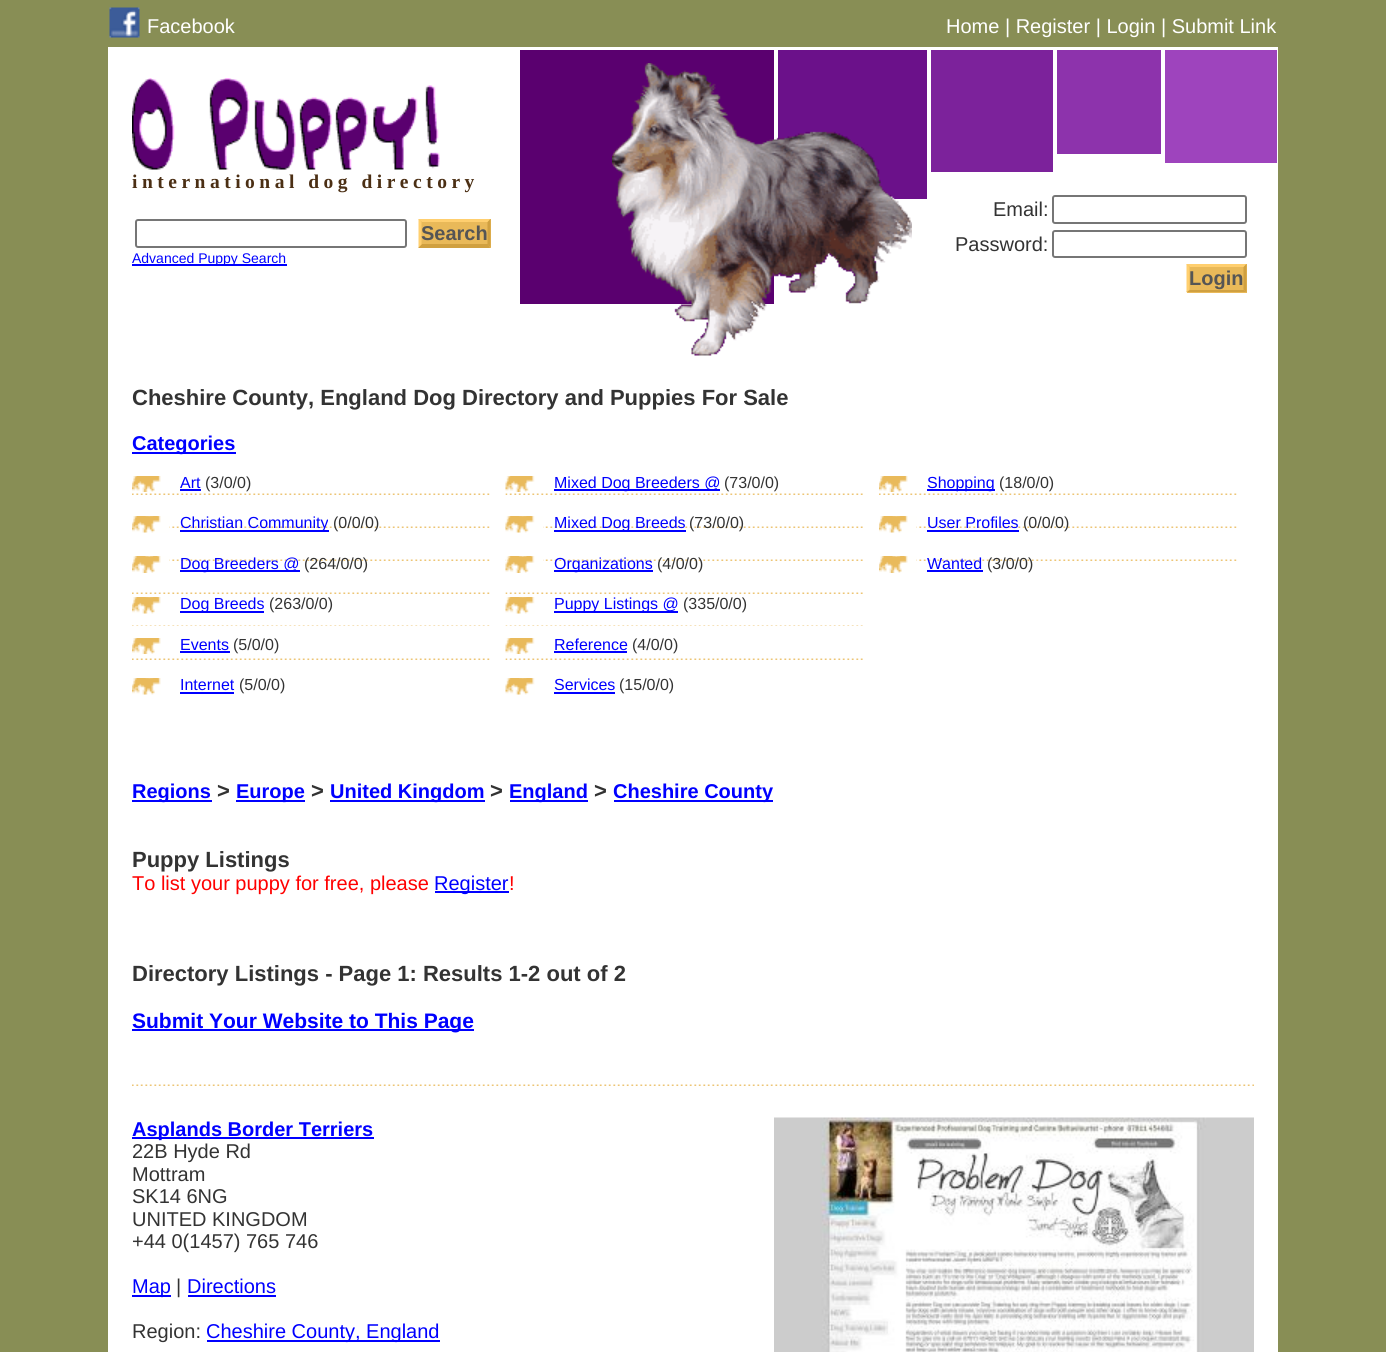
#include <cairo/cairo.h>
#include <math.h>
#include <stddef.h>


static void draw_spaced(cairo_t *cr, double x, double y, const char *s, double letter, double word) {
  cairo_move_to(cr, x, y);
  while (*s) {
    char ch[5] = {0};
    int n = 0;
    do ch[n++] = *s++; while ((*s & 0xC0) == 0x80);
    cairo_show_text(cr, ch);
    cairo_rel_move_to(cr, letter + word * (*ch == ' '), 0);
  }
}

static void rounded_rect(cairo_t *cr, double x, double y, double w, double h, double r) {
  cairo_new_sub_path(cr);
  cairo_arc(cr, x + w - r, y + h - r, r, 0, M_PI / 2);
  cairo_arc(cr, x + r, y + h - r, r, M_PI / 2, M_PI);
  cairo_arc(cr, x + r, y + r, r, M_PI, 1.5 * M_PI);
  cairo_arc(cr, x + w - r, y + r, r, 1.5 * M_PI, 2 * M_PI);
  cairo_close_path(cr);
}

static void draw_image(cairo_t *cr, const char *path, double x, double y, double w, double h) {
  cairo_surface_t *image = cairo_image_surface_create_from_png(path);
  cairo_save(cr);
  cairo_set_source_surface(cr, image, x, y);
  cairo_rectangle(cr, x, y, w, h);
  cairo_fill(cr);
  cairo_restore(cr);
  cairo_surface_destroy(image);
}

static void draw(cairo_t *cr) {
  cairo_set_source_rgb(cr, 136 / 255.0, 142 / 255.0, 85 / 255.0);
  cairo_paint(cr);
  draw_image(cr, "images/1.png", 109, 7, 31, 31);
  cairo_set_source_rgb(cr, 1, 1, 1);
  cairo_rectangle(cr, 108, 47, 1170, 1305);
  cairo_fill(cr);
  cairo_set_source_rgb(cr, 90 / 255.0, 0, 111 / 255.0);
  cairo_rectangle(cr, 520, 50, 254, 254);
  cairo_fill(cr);
  cairo_set_source_rgb(cr, 107 / 255.0, 17 / 255.0, 138 / 255.0);
  cairo_rectangle(cr, 778, 50, 149, 149);
  cairo_fill(cr);
  cairo_set_source_rgb(cr, 124 / 255.0, 34 / 255.0, 155 / 255.0);
  cairo_rectangle(cr, 931, 50, 122, 122);
  cairo_fill(cr);
  cairo_set_source_rgb(cr, 141 / 255.0, 51 / 255.0, 172 / 255.0);
  cairo_rectangle(cr, 1057, 50, 104, 104);
  cairo_fill(cr);
  cairo_set_source_rgb(cr, 158 / 255.0, 68 / 255.0, 189 / 255.0);
  cairo_rectangle(cr, 1165, 50, 112, 113);
  cairo_fill(cr);
  draw_image(cr, "images/2.png", 612, 63, 300, 293);
  draw_image(cr, "images/3.png", 132, 78, 308, 92);
  rounded_rect(cr, 136, 220, 270, 27, 2);
  cairo_set_source_rgb(cr, 118 / 255.0, 118 / 255.0, 118 / 255.0);
  cairo_stroke(cr);
  cairo_set_source_rgb(cr, 233 / 255.0, 185 / 255.0, 89 / 255.0);
  cairo_rectangle(cr, 419, 219, 72, 29);
  cairo_fill(cr);
  cairo_set_source_rgb(cr, 1, 207 / 255.0, 111 / 255.0);
  cairo_new_path(cr);
  cairo_move_to(cr, 418, 219);
  cairo_line_to(cr, 490, 219);
  cairo_line_to(cr, 488, 222);
  cairo_line_to(cr, 422, 222);
  cairo_close_path(cr);
  cairo_fill(cr);
  cairo_set_source_rgb(cr, 208 / 255.0, 160 / 255.0, 64 / 255.0);
  cairo_new_path(cr);
  cairo_move_to(cr, 490.5, 219);
  cairo_line_to(cr, 490.5, 247.5);
  cairo_line_to(cr, 487.5, 244.5);
  cairo_line_to(cr, 487.5, 222);
  cairo_close_path(cr);
  cairo_fill(cr);
  cairo_new_path(cr);
  cairo_move_to(cr, 490, 248);
  cairo_line_to(cr, 418, 248);
  cairo_line_to(cr, 422, 244);
  cairo_line_to(cr, 488, 244);
  cairo_close_path(cr);
  cairo_fill(cr);
  cairo_set_source_rgb(cr, 1, 207 / 255.0, 111 / 255.0);
  cairo_new_path(cr);
  cairo_move_to(cr, 418.5, 247.5);
  cairo_line_to(cr, 418.5, 219);
  cairo_line_to(cr, 421.5, 222);
  cairo_line_to(cr, 421.5, 244.5);
  cairo_close_path(cr);
  cairo_fill(cr);
  cairo_set_source_rgb(cr, 0, 0, 1);
  cairo_rectangle(cr, 132, 264, 155, 2);
  cairo_fill(cr);
  rounded_rect(cr, 1053, 196, 193, 27, 2);
  cairo_set_source_rgb(cr, 118 / 255.0, 118 / 255.0, 118 / 255.0);
  cairo_stroke(cr);
  rounded_rect(cr, 1053, 231, 193, 26, 2);
  cairo_stroke(cr);
  cairo_set_source_rgb(cr, 233 / 255.0, 185 / 255.0, 89 / 255.0);
  cairo_rectangle(cr, 1187, 264, 60, 29);
  cairo_fill(cr);
  cairo_set_source_rgb(cr, 1, 207 / 255.0, 111 / 255.0);
  cairo_new_path(cr);
  cairo_move_to(cr, 1186, 264);
  cairo_line_to(cr, 1246, 264);
  cairo_line_to(cr, 1244, 267);
  cairo_line_to(cr, 1190, 267);
  cairo_close_path(cr);
  cairo_fill(cr);
  cairo_set_source_rgb(cr, 208 / 255.0, 160 / 255.0, 64 / 255.0);
  cairo_new_path(cr);
  cairo_move_to(cr, 1246.5, 264);
  cairo_line_to(cr, 1246.5, 292.5);
  cairo_line_to(cr, 1243.5, 289.5);
  cairo_line_to(cr, 1243.5, 267);
  cairo_close_path(cr);
  cairo_fill(cr);
  cairo_new_path(cr);
  cairo_move_to(cr, 1246, 292);
  cairo_line_to(cr, 1186, 292);
  cairo_line_to(cr, 1190, 290);
  cairo_line_to(cr, 1244, 290);
  cairo_close_path(cr);
  cairo_fill(cr);
  cairo_set_source_rgb(cr, 1, 207 / 255.0, 111 / 255.0);
  cairo_new_path(cr);
  cairo_move_to(cr, 1186.5, 292.5);
  cairo_line_to(cr, 1186.5, 264);
  cairo_line_to(cr, 1189.5, 267);
  cairo_line_to(cr, 1189.5, 289.5);
  cairo_close_path(cr);
  cairo_fill(cr);
  cairo_set_source_rgb(cr, 0, 0, 1);
  cairo_rectangle(cr, 132, 452, 104, 2);
  cairo_fill(cr);
  draw_image(cr, "images/4.png", 132, 493, 358, 2);
  draw_image(cr, "images/5.png", 132, 476, 29, 16);
  cairo_rectangle(cr, 180, 489, 21, 2);
  cairo_fill(cr);
  draw_image(cr, "images/6.png", 169, 526, 321, 2);
  draw_image(cr, "images/7.png", 132, 516, 38, 17);
  cairo_rectangle(cr, 180, 530, 149, 2);
  cairo_fill(cr);
  draw_image(cr, "images/6.png", 169, 559, 321, 2);
  draw_image(cr, "images/8.png", 132, 556, 38, 17);
  cairo_rectangle(cr, 180, 570, 120, 2);
  cairo_fill(cr);
  draw_image(cr, "images/9.png", 132, 592, 358, 34);
  draw_image(cr, "images/10.png", 132, 597, 29, 17);
  cairo_rectangle(cr, 180, 611, 84, 2);
  cairo_fill(cr);
  draw_image(cr, "images/4.png", 132, 658, 358, 2);
  draw_image(cr, "images/5.png", 132, 638, 29, 16);
  cairo_rectangle(cr, 180, 651, 50, 2);
  cairo_fill(cr);
  draw_image(cr, "images/10.png", 132, 678, 29, 17);
  cairo_rectangle(cr, 180, 692, 54, 2);
  cairo_fill(cr);
  draw_image(cr, "images/11.png", 505, 493, 358, 2);
  draw_image(cr, "images/12.png", 505, 476, 30, 16);
  cairo_rectangle(cr, 554, 489, 166, 2);
  cairo_fill(cr);
  draw_image(cr, "images/11.png", 505, 526, 358, 2);
  draw_image(cr, "images/13.png", 505, 516, 38, 17);
  cairo_rectangle(cr, 554, 530, 132, 2);
  cairo_fill(cr);
  draw_image(cr, "images/11.png", 505, 559, 358, 2);
  draw_image(cr, "images/14.png", 505, 556, 38, 17);
  cairo_rectangle(cr, 554, 570, 99, 2);
  cairo_fill(cr);
  draw_image(cr, "images/15.png", 505, 592, 358, 34);
  draw_image(cr, "images/16.png", 505, 597, 30, 17);
  cairo_rectangle(cr, 554, 611, 124, 2);
  cairo_fill(cr);
  draw_image(cr, "images/11.png", 505, 658, 358, 2);
  draw_image(cr, "images/12.png", 505, 638, 30, 16);
  cairo_rectangle(cr, 554, 651, 73, 2);
  cairo_fill(cr);
  draw_image(cr, "images/16.png", 505, 678, 30, 17);
  cairo_rectangle(cr, 554, 692, 61, 2);
  cairo_fill(cr);
  draw_image(cr, "images/4.png", 879, 493, 358, 2);
  draw_image(cr, "images/5.png", 879, 476, 29, 16);
  cairo_rectangle(cr, 927, 489, 68, 2);
  cairo_fill(cr);
  draw_image(cr, "images/6.png", 916, 526, 321, 2);
  draw_image(cr, "images/7.png", 879, 516, 38, 17);
  cairo_rectangle(cr, 927, 530, 92, 2);
  cairo_fill(cr);
  draw_image(cr, "images/6.png", 916, 559, 321, 2);
  draw_image(cr, "images/8.png", 879, 556, 38, 17);
  cairo_rectangle(cr, 927, 570, 56, 2);
  cairo_fill(cr);
  cairo_rectangle(cr, 132, 800, 80, 2);
  cairo_fill(cr);
  cairo_rectangle(cr, 236, 800, 69, 2);
  cairo_fill(cr);
  cairo_rectangle(cr, 330, 800, 155, 2);
  cairo_fill(cr);
  cairo_rectangle(cr, 510, 800, 78, 2);
  cairo_fill(cr);
  cairo_rectangle(cr, 614, 800, 159, 2);
  cairo_fill(cr);
  cairo_rectangle(cr, 435, 891, 74, 2);
  cairo_fill(cr);
  cairo_rectangle(cr, 132, 1029, 342, 2);
  cairo_fill(cr);
  draw_image(cr, "images/17.png", 132, 1084, 1122, 2);
  cairo_rectangle(cr, 132, 1137, 242, 2);
  cairo_fill(cr);
  draw_image(cr, "images/18.png", 774, 1117, 480, 235);
  cairo_rectangle(cr, 132, 1295, 39, 2);
  cairo_fill(cr);
  cairo_rectangle(cr, 188, 1295, 88, 2);
  cairo_fill(cr);
  cairo_rectangle(cr, 207, 1340, 233, 2);
  cairo_fill(cr);
  cairo_select_font_face(cr, "Liberation Sans", CAIRO_FONT_SLANT_NORMAL, CAIRO_FONT_WEIGHT_NORMAL);
  cairo_set_font_size(cr, 20);
  cairo_set_source_rgb(cr, 1, 1, 1);
  cairo_move_to(cr, 147, 33);
  cairo_show_text(cr, "Facebook");
  cairo_move_to(cr, 946, 33);
  cairo_show_text(cr, "Home | Register | Login | Submit Link");
  cairo_select_font_face(cr, "Liberation Serif", CAIRO_FONT_SLANT_NORMAL, CAIRO_FONT_WEIGHT_BOLD);
  cairo_set_font_size(cr, 19.5);
  cairo_set_source_rgb(cr, 75 / 255.0, 47 / 255.0, 20 / 255.0);
  draw_spaced(cr, 132, 188, "international dog directory", 4.5, 0);
  cairo_select_font_face(cr, "Liberation Sans", CAIRO_FONT_SLANT_NORMAL, CAIRO_FONT_WEIGHT_BOLD);
  cairo_set_font_size(cr, 20);
  cairo_set_source_rgb(cr, 85 / 255.0, 85 / 255.0, 85 / 255.0);
  cairo_move_to(cr, 421, 240);
  cairo_show_text(cr, "Search");
  cairo_select_font_face(cr, "Liberation Sans", CAIRO_FONT_SLANT_NORMAL, CAIRO_FONT_WEIGHT_NORMAL);
  cairo_set_font_size(cr, 14);
  cairo_set_source_rgb(cr, 0, 0, 1);
  cairo_move_to(cr, 132, 263);
  cairo_show_text(cr, "Advanced Puppy Search");
  cairo_set_font_size(cr, 20);
  cairo_set_source_rgb(cr, 51 / 255.0, 51 / 255.0, 51 / 255.0);
  cairo_move_to(cr, 993, 216);
  cairo_show_text(cr, "Email:");
  cairo_move_to(cr, 955, 251);
  cairo_show_text(cr, "Password:");
  cairo_select_font_face(cr, "Liberation Sans", CAIRO_FONT_SLANT_NORMAL, CAIRO_FONT_WEIGHT_BOLD);
  cairo_set_source_rgb(cr, 85 / 255.0, 85 / 255.0, 85 / 255.0);
  cairo_move_to(cr, 1189, 285);
  cairo_show_text(cr, "Login");
  cairo_set_font_size(cr, 22);
  cairo_set_source_rgb(cr, 51 / 255.0, 51 / 255.0, 51 / 255.0);
  cairo_move_to(cr, 132, 405);
  cairo_show_text(cr, "Cheshire County, England Dog Directory and Puppies For Sale");
  cairo_set_font_size(cr, 20);
  cairo_set_source_rgb(cr, 0, 0, 1);
  cairo_move_to(cr, 132, 450);
  cairo_show_text(cr, "Categories");
  cairo_select_font_face(cr, "Liberation Sans", CAIRO_FONT_SLANT_NORMAL, CAIRO_FONT_WEIGHT_NORMAL);
  cairo_set_font_size(cr, 16);
  cairo_move_to(cr, 180, 488);
  cairo_show_text(cr, "Art");
  cairo_set_source_rgb(cr, 51 / 255.0, 51 / 255.0, 51 / 255.0);
  cairo_move_to(cr, 205, 488);
  cairo_show_text(cr, "(3/0/0)");
  cairo_set_source_rgb(cr, 0, 0, 1);
  cairo_move_to(cr, 180, 528);
  cairo_show_text(cr, "Christian Community");
  cairo_set_source_rgb(cr, 51 / 255.0, 51 / 255.0, 51 / 255.0);
  cairo_move_to(cr, 333, 528);
  cairo_show_text(cr, "(0/0/0)");
  cairo_set_source_rgb(cr, 0, 0, 1);
  cairo_move_to(cr, 180, 569);
  cairo_show_text(cr, "Dog Breeders @");
  cairo_set_source_rgb(cr, 51 / 255.0, 51 / 255.0, 51 / 255.0);
  cairo_move_to(cr, 304, 569);
  cairo_show_text(cr, "(264/0/0)");
  cairo_set_source_rgb(cr, 0, 0, 1);
  cairo_move_to(cr, 180, 609);
  cairo_show_text(cr, "Dog Breeds");
  cairo_set_source_rgb(cr, 51 / 255.0, 51 / 255.0, 51 / 255.0);
  cairo_move_to(cr, 269, 609);
  cairo_show_text(cr, "(263/0/0)");
  cairo_set_source_rgb(cr, 0, 0, 1);
  cairo_move_to(cr, 180, 650);
  cairo_show_text(cr, "Events");
  cairo_set_source_rgb(cr, 51 / 255.0, 51 / 255.0, 51 / 255.0);
  cairo_move_to(cr, 233, 650);
  cairo_show_text(cr, "(5/0/0)");
  cairo_set_source_rgb(cr, 0, 0, 1);
  cairo_move_to(cr, 180, 690);
  cairo_show_text(cr, "Internet");
  cairo_set_source_rgb(cr, 51 / 255.0, 51 / 255.0, 51 / 255.0);
  cairo_move_to(cr, 239, 690);
  cairo_show_text(cr, "(5/0/0)");
  cairo_set_source_rgb(cr, 0, 0, 1);
  cairo_move_to(cr, 554, 488);
  cairo_show_text(cr, "Mixed Dog Breeders @");
  cairo_set_source_rgb(cr, 51 / 255.0, 51 / 255.0, 51 / 255.0);
  cairo_move_to(cr, 724, 488);
  cairo_show_text(cr, "(73/0/0)");
  cairo_set_source_rgb(cr, 0, 0, 1);
  cairo_move_to(cr, 554, 528);
  cairo_show_text(cr, "Mixed Dog Breeds");
  cairo_set_source_rgb(cr, 51 / 255.0, 51 / 255.0, 51 / 255.0);
  cairo_move_to(cr, 689, 528);
  cairo_show_text(cr, "(73/0/0)");
  cairo_set_source_rgb(cr, 0, 0, 1);
  cairo_move_to(cr, 554, 569);
  cairo_show_text(cr, "Organizations");
  cairo_set_source_rgb(cr, 51 / 255.0, 51 / 255.0, 51 / 255.0);
  cairo_move_to(cr, 657, 569);
  cairo_show_text(cr, "(4/0/0)");
  cairo_set_source_rgb(cr, 0, 0, 1);
  cairo_move_to(cr, 554, 609);
  cairo_show_text(cr, "Puppy Listings @");
  cairo_set_source_rgb(cr, 51 / 255.0, 51 / 255.0, 51 / 255.0);
  cairo_move_to(cr, 683, 609);
  cairo_show_text(cr, "(335/0/0)");
  cairo_set_source_rgb(cr, 0, 0, 1);
  cairo_move_to(cr, 554, 650);
  cairo_show_text(cr, "Reference");
  cairo_set_source_rgb(cr, 51 / 255.0, 51 / 255.0, 51 / 255.0);
  cairo_move_to(cr, 632, 650);
  cairo_show_text(cr, "(4/0/0)");
  cairo_set_source_rgb(cr, 0, 0, 1);
  cairo_move_to(cr, 554, 690);
  cairo_show_text(cr, "Services");
  cairo_set_source_rgb(cr, 51 / 255.0, 51 / 255.0, 51 / 255.0);
  cairo_move_to(cr, 619, 690);
  cairo_show_text(cr, "(15/0/0)");
  cairo_set_source_rgb(cr, 0, 0, 1);
  cairo_move_to(cr, 927, 488);
  cairo_show_text(cr, "Shopping");
  cairo_set_source_rgb(cr, 51 / 255.0, 51 / 255.0, 51 / 255.0);
  cairo_move_to(cr, 999, 488);
  cairo_show_text(cr, "(18/0/0)");
  cairo_set_source_rgb(cr, 0, 0, 1);
  cairo_move_to(cr, 927, 528);
  cairo_show_text(cr, "User Profiles");
  cairo_set_source_rgb(cr, 51 / 255.0, 51 / 255.0, 51 / 255.0);
  cairo_move_to(cr, 1023, 528);
  cairo_show_text(cr, "(0/0/0)");
  cairo_set_source_rgb(cr, 0, 0, 1);
  cairo_move_to(cr, 927, 569);
  cairo_show_text(cr, "Wanted");
  cairo_set_source_rgb(cr, 51 / 255.0, 51 / 255.0, 51 / 255.0);
  cairo_move_to(cr, 987, 569);
  cairo_show_text(cr, "(3/0/0)");
  cairo_select_font_face(cr, "Liberation Sans", CAIRO_FONT_SLANT_NORMAL, CAIRO_FONT_WEIGHT_BOLD);
  cairo_set_font_size(cr, 20);
  cairo_set_source_rgb(cr, 0, 0, 1);
  cairo_move_to(cr, 132, 798);
  cairo_show_text(cr, "Regions");
  cairo_set_font_size(cr, 22);
  cairo_set_source_rgb(cr, 51 / 255.0, 51 / 255.0, 51 / 255.0);
  cairo_move_to(cr, 217, 798);
  cairo_show_text(cr, ">");
  cairo_set_font_size(cr, 20);
  cairo_set_source_rgb(cr, 0, 0, 1);
  cairo_move_to(cr, 236, 798);
  cairo_show_text(cr, "Europe");
  cairo_set_font_size(cr, 22);
  cairo_set_source_rgb(cr, 51 / 255.0, 51 / 255.0, 51 / 255.0);
  cairo_move_to(cr, 311, 798);
  cairo_show_text(cr, ">");
  cairo_set_font_size(cr, 20);
  cairo_set_source_rgb(cr, 0, 0, 1);
  cairo_move_to(cr, 330, 798);
  cairo_show_text(cr, "United Kingdom");
  cairo_set_font_size(cr, 22);
  cairo_set_source_rgb(cr, 51 / 255.0, 51 / 255.0, 51 / 255.0);
  cairo_move_to(cr, 490, 798);
  cairo_show_text(cr, ">");
  cairo_set_font_size(cr, 20);
  cairo_set_source_rgb(cr, 0, 0, 1);
  cairo_move_to(cr, 509, 798);
  cairo_show_text(cr, "England");
  cairo_set_font_size(cr, 22);
  cairo_set_source_rgb(cr, 51 / 255.0, 51 / 255.0, 51 / 255.0);
  cairo_move_to(cr, 594, 798);
  cairo_show_text(cr, ">");
  cairo_set_font_size(cr, 20);
  cairo_set_source_rgb(cr, 0, 0, 1);
  cairo_move_to(cr, 613, 798);
  cairo_show_text(cr, "Cheshire County");
  cairo_set_font_size(cr, 22);
  cairo_set_source_rgb(cr, 51 / 255.0, 51 / 255.0, 51 / 255.0);
  cairo_move_to(cr, 132, 867);
  cairo_show_text(cr, "Puppy Listings");
  cairo_select_font_face(cr, "Liberation Sans", CAIRO_FONT_SLANT_NORMAL, CAIRO_FONT_WEIGHT_NORMAL);
  cairo_set_font_size(cr, 20);
  cairo_set_source_rgb(cr, 1, 0, 0);
  cairo_move_to(cr, 132, 890);
  cairo_show_text(cr, "To list your puppy for free, please");
  cairo_set_source_rgb(cr, 0, 0, 1);
  cairo_move_to(cr, 434, 890);
  cairo_show_text(cr, "Register");
  cairo_set_source_rgb(cr, 1, 0, 0);
  cairo_move_to(cr, 509, 890);
  cairo_show_text(cr, "!");
  cairo_select_font_face(cr, "Liberation Sans", CAIRO_FONT_SLANT_NORMAL, CAIRO_FONT_WEIGHT_BOLD);
  cairo_set_font_size(cr, 22);
  cairo_set_source_rgb(cr, 51 / 255.0, 51 / 255.0, 51 / 255.0);
  cairo_move_to(cr, 132, 981);
  cairo_show_text(cr, "Directory Listings - Page 1: Results 1-2 out of 2");
  cairo_set_font_size(cr, 21);
  cairo_set_source_rgb(cr, 0, 0, 1);
  cairo_move_to(cr, 132, 1028);
  cairo_show_text(cr, "Submit Your Website to This Page");
  cairo_set_font_size(cr, 20);
  cairo_move_to(cr, 132, 1136);
  cairo_show_text(cr, "Asplands Border Terriers");
  cairo_select_font_face(cr, "Liberation Sans", CAIRO_FONT_SLANT_NORMAL, CAIRO_FONT_WEIGHT_NORMAL);
  cairo_set_source_rgb(cr, 51 / 255.0, 51 / 255.0, 51 / 255.0);
  cairo_move_to(cr, 132, 1158);
  cairo_show_text(cr, "22B Hyde Rd");
  cairo_move_to(cr, 132, 1181);
  cairo_show_text(cr, "Mottram");
  cairo_move_to(cr, 132, 1203);
  cairo_show_text(cr, "SK14 6NG");
  cairo_move_to(cr, 132, 1226);
  cairo_show_text(cr, "UNITED KINGDOM");
  cairo_move_to(cr, 132, 1248);
  cairo_show_text(cr, "+44 0(1457) 765 746");
  cairo_set_source_rgb(cr, 0, 0, 1);
  cairo_move_to(cr, 132, 1293);
  cairo_show_text(cr, "Map");
  cairo_set_source_rgb(cr, 51 / 255.0, 51 / 255.0, 51 / 255.0);
  cairo_move_to(cr, 176, 1293);
  cairo_show_text(cr, "|");
  cairo_set_source_rgb(cr, 0, 0, 1);
  cairo_move_to(cr, 187, 1293);
  cairo_show_text(cr, "Directions");
  cairo_set_source_rgb(cr, 51 / 255.0, 51 / 255.0, 51 / 255.0);
  cairo_move_to(cr, 132, 1338);
  cairo_show_text(cr, "Region:");
  cairo_set_source_rgb(cr, 0, 0, 1);
  cairo_move_to(cr, 206, 1338);
  cairo_show_text(cr, "Cheshire County, England");
}

int main(void) {
  cairo_surface_t *surface = cairo_image_surface_create(CAIRO_FORMAT_RGB24, 1386, 1352);
  cairo_t *cr = cairo_create(surface);
  cairo_font_options_t *options = cairo_font_options_create();
  cairo_font_options_set_hint_metrics(options, CAIRO_HINT_METRICS_OFF);
  cairo_font_options_set_hint_style(options, CAIRO_HINT_STYLE_NONE);
  cairo_set_font_options(cr, options);
  cairo_set_miter_limit(cr, 4);
  draw(cr);
  cairo_surface_write_to_png(surface, "out.png");
  cairo_font_options_destroy(options);
  cairo_destroy(cr);
  cairo_surface_destroy(surface);
  return 0;
}
